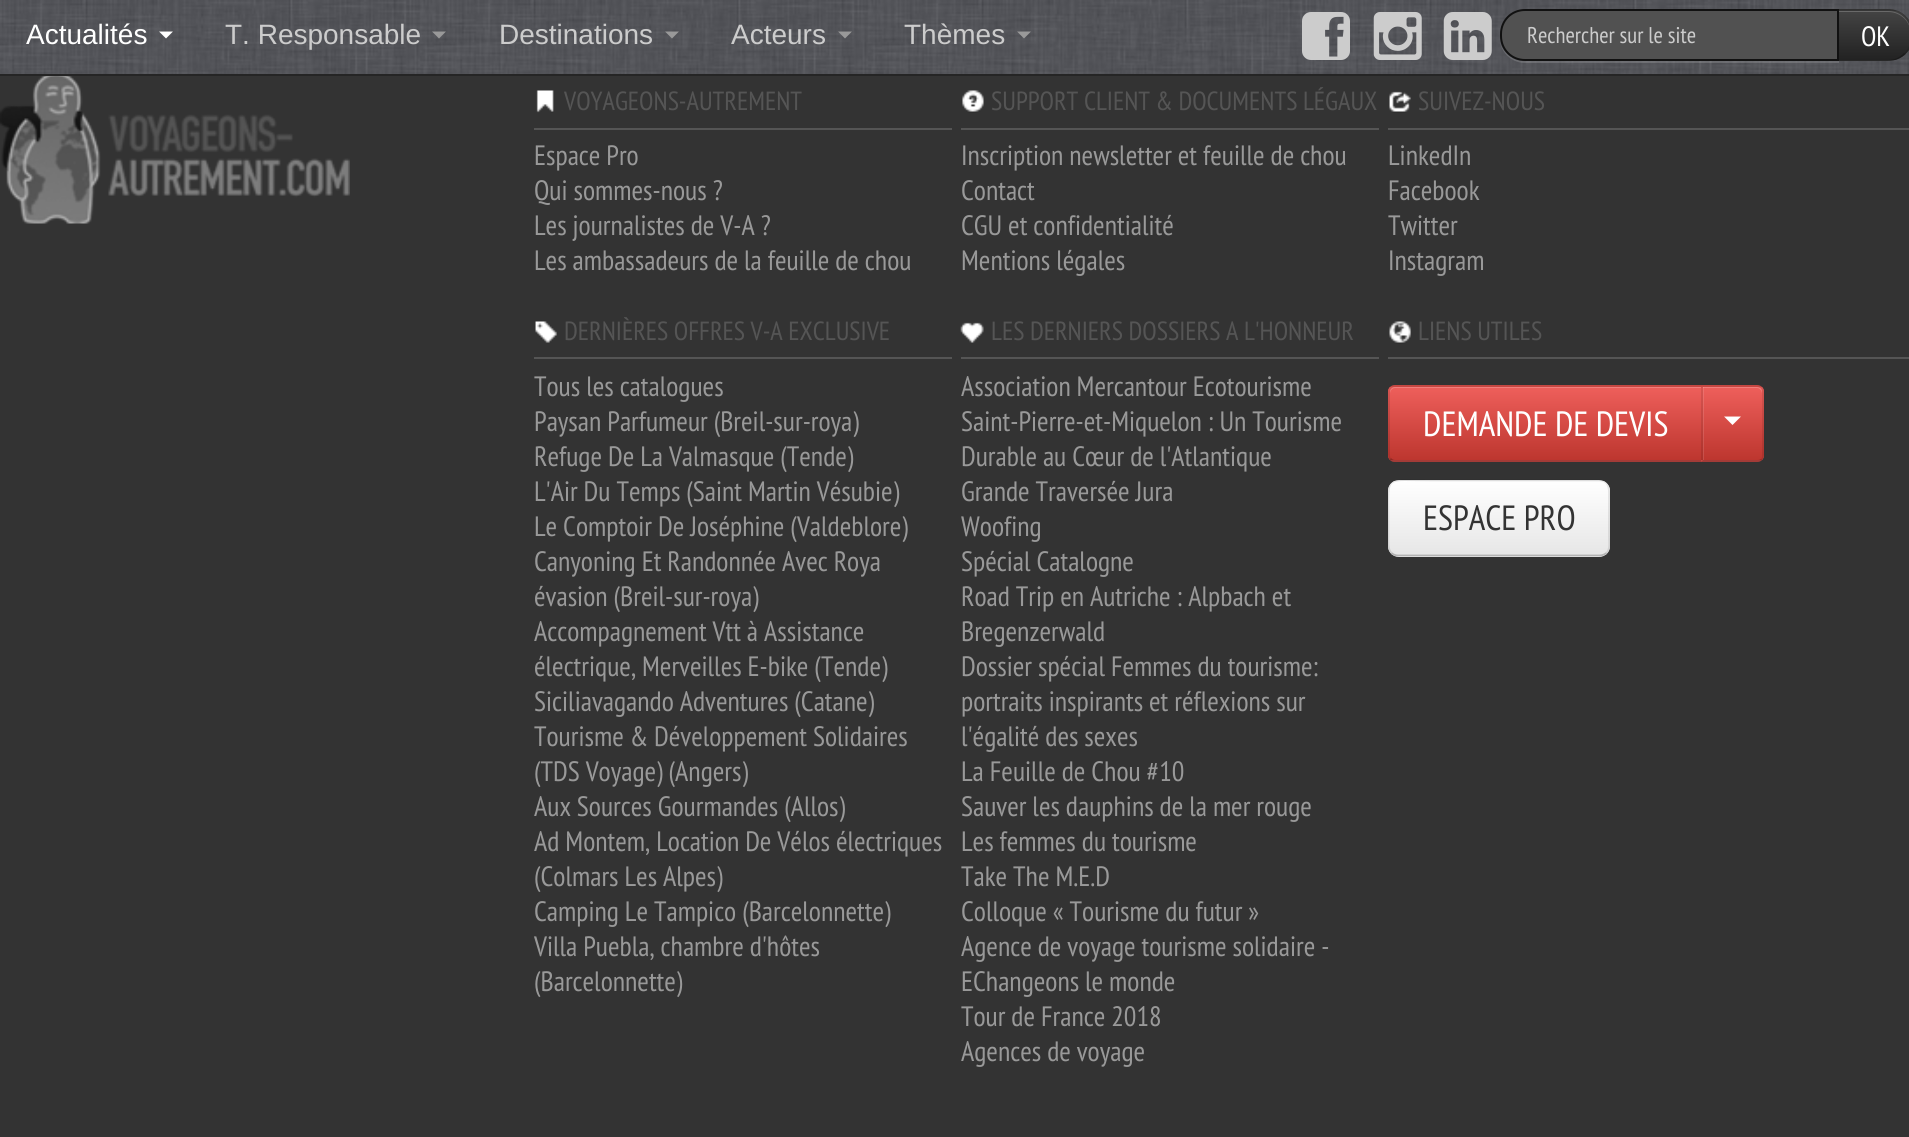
import math
import cairo

surface = cairo.ImageSurface(cairo.Format.RGB24, 1909, 1137)
ctx = cairo.Context(surface)
options = cairo.FontOptions()
options.set_hint_metrics(cairo.HintMetrics.OFF)
options.set_hint_style(cairo.HintStyle.NONE)
ctx.set_font_options(options)
ctx.set_miter_limit(4)


def ink(r, g, b):
    ctx.set_source_rgb(r / 255, g / 255, b / 255)


def write(x, y, s, family, size, color, bold=False, italic=False):
    ctx.select_font_face(family, cairo.FontSlant.ITALIC if italic else cairo.FontSlant.NORMAL, cairo.FontWeight.BOLD if bold else cairo.FontWeight.NORMAL)
    ctx.set_font_size(size)
    ink(*color)
    ctx.move_to(x, y)
    ctx.show_text(s)


def block(x, y, w, h, *color):
    ink(*color)
    ctx.rectangle(x, y, w, h)
    ctx.fill()


def round_path(x, y, w, h, r):
    ctx.new_sub_path()
    for i, (u, v) in enumerate([(x + w - r, y + h - r), (x + r, y + h - r), (x + r, y + r), (x + w - r, y + r)]):
        ctx.arc(u, v, r, i * math.pi / 2, (i + 1) * math.pi / 2)
    ctx.close_path()


def paste(path, x, y, w, h):
    ctx.save()
    ctx.set_source_surface(cairo.ImageSurface.create_from_png(path), x, y)
    ctx.rectangle(x, y, w, h)
    ctx.fill()
    ctx.restore()


s1 = dict(family="Liberation Sans", size=28, color=(255, 255, 255))
s2 = dict(family="Liberation Sans", size=28, color=(204, 204, 204))
s3 = dict(family="PT Sans Narrow", size=22.75, color=(204, 204, 204))
s4 = dict(family="PT Sans Narrow", size=28, color=(255, 255, 255))
s5 = dict(family="PT Sans Narrow", size=26.25, color=(85, 85, 85))
s6 = dict(family="PT Sans Narrow", size=28, color=(153, 153, 153))
s7 = dict(family="PT Sans Narrow", size=35, color=(255, 255, 255))
s8 = dict(family="PT Sans Narrow", size=35, color=(51, 51, 51))

ink(51, 51, 51)
ctx.paint()
paste("pic1.png", 0, 0, 1909, 74)
block(0, 74, 1909, 2, 37, 37, 37)
write(26, 44, "Actualités", **s1)
ctx.new_path()
ctx.move_to(159, 31.5)
ctx.line_to(173, 31.5)
ctx.line_to(166, 38.5)
ctx.close_path()
ctx.fill()
write(225, 44, "T. Responsable", **s2)
ink(153, 153, 153)
ctx.new_path()
ctx.move_to(432, 31.5)
ctx.line_to(446, 31.5)
ctx.line_to(439, 38.5)
ctx.close_path()
ctx.fill()
write(499, 44, "Destinations", **s2)
ink(153, 153, 153)
ctx.new_path()
ctx.move_to(665, 31.5)
ctx.line_to(679, 31.5)
ctx.line_to(672, 38.5)
ctx.close_path()
ctx.fill()
write(731, 44, "Acteurs", **s2)
ink(153, 153, 153)
ctx.new_path()
ctx.move_to(838, 31.5)
ctx.line_to(852, 31.5)
ctx.line_to(845, 38.5)
ctx.close_path()
ctx.fill()
write(904, 44, "Thèmes", **s2)
ink(153, 153, 153)
ctx.new_path()
ctx.move_to(1017, 31.5)
ctx.line_to(1031, 31.5)
ctx.line_to(1024, 38.5)
ctx.close_path()
ctx.fill()
paste("pic2.png", 1302, 12, 48, 48)
paste("pic3.png", 1373, 12, 49, 48)
paste("pic4.png", 1443, 12, 49, 48)
ink(54, 54, 54)
ctx.new_path()
ctx.move_to(1838, 9)
ctx.line_to(1888, 9)
ctx.curve_to(1902, 9, 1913, 20, 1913, 34)
ctx.line_to(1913, 36)
ctx.curve_to(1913, 50, 1902, 61, 1888, 61)
ctx.line_to(1838, 61)
ctx.close_path()
ctx.fill()
ctx.save()
ctx.new_path()
ctx.move_to(1838, 9)
ctx.line_to(1888, 9)
ctx.curve_to(1902, 9, 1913, 20, 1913, 34)
ctx.line_to(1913, 36)
ctx.curve_to(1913, 50, 1902, 61, 1888, 61)
ctx.line_to(1838, 61)
ctx.close_path()
ctx.clip()
gradient = cairo.LinearGradient(1875, 10, 1875, 60)
gradient.add_color_stop_rgba(0, 0.267, 0.267, 0.267, 1)
gradient.add_color_stop_rgba(1, 0.133, 0.133, 0.133, 1)
ctx.set_source(gradient)
ctx.rectangle(1839, 11, 70, 49)
ctx.fill()
ctx.restore()
ctx.set_source_rgba(1, 1, 1, 0.2)
ctx.new_path()
ctx.move_to(1839, 12)
ctx.line_to(1888, 12)
ctx.curve_to(1901, 12, 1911, 22, 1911, 35)
ctx.line_to(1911, 34)
ctx.curve_to(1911, 21, 1901, 11, 1888, 11)
ctx.line_to(1839, 11)
ctx.close_path()
ctx.fill()
ctx.set_source_rgba(0, 0, 0, 0.1)
ctx.new_path()
ctx.move_to(1838, 9)
ctx.line_to(1839, 10)
ctx.line_to(1888, 10)
ctx.curve_to(1895, 10, 1900, 13, 1904, 17)
ctx.line_to(1906, 16)
ctx.curve_to(1901, 12, 1895, 9, 1888, 9)
ctx.close_path()
ctx.fill()
ctx.new_path()
ctx.move_to(1905.5, 16)
ctx.curve_to(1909.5, 19.5, 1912, 24.5, 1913, 29.5)
ctx.line_to(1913, 40.5)
ctx.curve_to(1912, 45.5, 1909.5, 50.5, 1905.5, 54)
ctx.line_to(1904.5, 53)
ctx.curve_to(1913.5, 43.5, 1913.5, 26.5, 1904.5, 17)
ctx.close_path()
ctx.fill()
ctx.set_source_rgba(0, 0, 0, 0.25)
ctx.new_path()
ctx.move_to(1906, 54)
ctx.curve_to(1901, 58, 1895, 61, 1888, 61)
ctx.line_to(1838, 61)
ctx.line_to(1839, 60)
ctx.line_to(1888, 60)
ctx.curve_to(1895, 60, 1900, 57, 1904, 53)
ctx.close_path()
ctx.fill()
ctx.set_source_rgba(1, 1, 1, 0.15)
ctx.new_path()
ctx.move_to(1500, 42)
ctx.curve_to(1502, 54, 1513, 63, 1525, 63)
ctx.line_to(1839, 63)
ctx.line_to(1839, 61)
ctx.line_to(1524, 61)
ctx.curve_to(1513, 61, 1503, 53, 1500, 42)
ctx.close_path()
ctx.fill()
ink(81, 81, 81)
ctx.new_path()
ctx.move_to(1525, 10)
ctx.line_to(1838, 10)
ctx.line_to(1838, 60)
ctx.line_to(1525, 60)
ctx.curve_to(1511.5, 60, 1501, 49.5, 1501, 36)
ctx.line_to(1501, 34)
ctx.curve_to(1501, 20.5, 1511.5, 10, 1525, 10)
ctx.close_path()
ctx.fill_preserve()
ink(17, 17, 17)
ctx.stroke()
write(1527, 43, "Rechercher sur le site", **s3)
write(1861, 46, "OK", **s4)
paste("pic5.png", 0, 76, 350, 148)
block(534, 128, 418, 2, 85, 85, 85)
paste("pic6.png", 536, 90, 18, 23)
write(564, 110, "VOYAGEONS-AUTREMENT", **s5)
write(534, 165, "Espace Pro", **s6)
write(534, 200, "Qui sommes-nous ?", **s6)
write(534, 235, "Les journalistes de V-A ?", **s6)
write(534, 270, "Les ambassadeurs de la feuille de chou", **s6)
block(961, 128, 418, 2, 85, 85, 85)
paste("pic7.png", 962, 90, 22, 23)
write(991, 110, "SUPPORT CLIENT & DOCUMENTS LÉGAUX", **s5)
write(961, 165, "Inscription newsletter et feuille de chou", **s6)
write(961, 200, "Contact", **s6)
write(961, 235, "CGU et confidentialité", **s6)
write(961, 270, "Mentions légales", **s6)
block(1388, 128, 521, 2, 85, 85, 85)
paste("pic8.png", 1389, 91, 22, 22)
write(1418, 110, "SUIVEZ-NOUS", **s5)
write(1388, 165, "LinkedIn", **s6)
write(1388, 200, "Facebook", **s6)
write(1388, 235, "Twitter", **s6)
write(1388, 270, "Instagram", **s6)
block(534, 357, 418, 2, 85, 85, 85)
paste("pic9.png", 535, 321, 22, 22)
write(564, 340, "DERNIÈRES OFFRES V-A EXCLUSIVE", **s5)
write(534, 396, "Tous les catalogues", **s6)
write(534, 431, "Paysan Parfumeur (Breil-sur-roya)", **s6)
write(534, 466, "Refuge De La Valmasque (Tende)", **s6)
write(534, 501, "L'Air Du Temps (Saint Martin Vésubie)", **s6)
write(534, 536, "Le Comptoir De Joséphine (Valdeblore)", **s6)
write(534, 571, "Canyoning Et Randonnée Avec Roya", **s6)
write(534, 606, "évasion (Breil-sur-roya)", **s6)
write(534, 641, "Accompagnement Vtt à Assistance", **s6)
write(534, 676, "électrique, Merveilles E-bike (Tende)", **s6)
write(534, 711, "Siciliavagando Adventures (Catane)", **s6)
write(534, 746, "Tourisme & Développement Solidaires", **s6)
write(534, 781, "(TDS Voyage) (Angers)", **s6)
write(534, 816, "Aux Sources Gourmandes (Allos)", **s6)
write(534, 851, "Ad Montem, Location De Vélos électriques", **s6)
write(534, 886, "(Colmars Les Alpes)", **s6)
write(534, 921, "Camping Le Tampico (Barcelonnette)", **s6)
write(534, 956, "Villa Puebla, chambre d'hôtes", **s6)
write(534, 991, "(Barcelonnette)", **s6)
block(961, 357, 418, 2, 85, 85, 85)
paste("pic10.png", 960, 322, 24, 21)
write(991, 340, "LES DERNIERS DOSSIERS A L'HONNEUR", **s5)
write(961, 396, "Association Mercantour Ecotourisme", **s6)
write(961, 431, "Saint-Pierre-et-Miquelon : Un Tourisme", **s6)
write(961, 466, "Durable au Cœur de l'Atlantique", **s6)
write(961, 501, "Grande Traversée Jura", **s6)
write(961, 536, "Woofing", **s6)
write(961, 571, "Spécial Catalogne", **s6)
write(961, 606, "Road Trip en Autriche : Alpbach et", **s6)
write(961, 641, "Bregenzerwald", **s6)
write(961, 676, "Dossier spécial Femmes du tourisme:", **s6)
write(961, 711, "portraits inspirants et réflexions sur", **s6)
write(961, 746, "l'égalité des sexes", **s6)
write(961, 781, "La Feuille de Chou #10", **s6)
write(961, 816, "Sauver les dauphins de la mer rouge", **s6)
write(961, 851, "Les femmes du tourisme", **s6)
write(961, 886, "Take The M.E.D", **s6)
write(961, 921, "Colloque « Tourisme du futur »", **s6)
write(961, 956, "Agence de voyage tourisme solidaire -", **s6)
write(961, 991, "EChangeons le monde", **s6)
write(961, 1026, "Tour de France 2018", **s6)
write(961, 1061, "Agences de voyage", **s6)
block(1388, 357, 521, 2, 85, 85, 85)
paste("pic11.png", 1389, 321, 22, 23)
write(1418, 340, "LIENS UTILES", **s5)
ink(218, 79, 73)
ctx.new_path()
ctx.move_to(1395, 385)
ctx.line_to(1703, 385)
ctx.line_to(1703, 462)
ctx.line_to(1395, 462)
ctx.curve_to(1391, 462, 1388, 459, 1388, 455)
ctx.line_to(1388, 392)
ctx.curve_to(1388, 388, 1391, 385, 1395, 385)
ctx.close_path()
ctx.fill()
ctx.save()
ctx.new_path()
ctx.move_to(1395, 385)
ctx.line_to(1703, 385)
ctx.line_to(1703, 462)
ctx.line_to(1395, 462)
ctx.curve_to(1391, 462, 1388, 459, 1388, 455)
ctx.line_to(1388, 392)
ctx.curve_to(1388, 388, 1391, 385, 1395, 385)
ctx.close_path()
ctx.clip()
gradient = cairo.LinearGradient(1545, 387, 1545, 460)
gradient.add_color_stop_rgba(0, 0.933, 0.373, 0.357, 1)
gradient.add_color_stop_rgba(1, 0.741, 0.212, 0.184, 1)
ctx.set_source(gradient)
ctx.rectangle(1388, 387, 313, 73)
ctx.fill()
ctx.restore()
ink(241, 127, 124)
ctx.new_path()
ctx.move_to(1395, 388)
ctx.line_to(1701, 388)
ctx.line_to(1701, 387)
ctx.line_to(1394, 387)
ctx.curve_to(1390, 388, 1390, 391, 1390, 394)
ctx.curve_to(1390, 391, 1392, 388, 1395, 388)
ctx.close_path()
ctx.fill()
ctx.set_source_rgba(0, 0, 0, 0.1)
ctx.new_path()
ctx.move_to(1395, 385)
ctx.curve_to(1393, 385, 1391, 386, 1390, 387)
ctx.line_to(1391, 389)
ctx.curve_to(1392, 388, 1393, 387, 1395, 387)
ctx.line_to(1701, 387)
ctx.line_to(1703, 385)
ctx.close_path()
ctx.fill()
ctx.set_source_rgba(0, 0, 0, 0.25)
ctx.new_path()
ctx.move_to(1703, 462)
ctx.line_to(1701, 460)
ctx.line_to(1395, 460)
ctx.curve_to(1393, 460, 1392, 459, 1391, 458)
ctx.line_to(1390, 460)
ctx.curve_to(1391, 461, 1393, 462, 1395, 462)
ctx.close_path()
ctx.fill()
ctx.set_source_rgba(0, 0, 0, 0.1)
ctx.new_path()
ctx.move_to(1390, 387)
ctx.curve_to(1389, 388, 1388, 390, 1388, 392)
ctx.line_to(1388, 455)
ctx.curve_to(1388, 457, 1389, 459, 1390, 460)
ctx.line_to(1391, 458)
ctx.curve_to(1390, 458, 1390, 456, 1390, 455)
ctx.line_to(1390, 392)
ctx.curve_to(1390, 391, 1390, 389, 1391, 389)
ctx.close_path()
ctx.fill()
write(1423, 436, "DEMANDE DE DEVIS", **s7)
ink(218, 79, 73)
ctx.new_path()
ctx.move_to(1701, 385)
ctx.line_to(1757, 385)
ctx.curve_to(1761, 385, 1764, 388, 1764, 392)
ctx.line_to(1764, 455)
ctx.curve_to(1764, 459, 1761, 462, 1757, 462)
ctx.line_to(1701, 462)
ctx.close_path()
ctx.fill()
ctx.save()
ctx.new_path()
ctx.move_to(1701, 385)
ctx.line_to(1757, 385)
ctx.curve_to(1761, 385, 1764, 388, 1764, 392)
ctx.line_to(1764, 455)
ctx.curve_to(1764, 459, 1761, 462, 1757, 462)
ctx.line_to(1701, 462)
ctx.close_path()
ctx.clip()
gradient = cairo.LinearGradient(1733, 387, 1733, 460)
gradient.add_color_stop_rgba(0, 0.933, 0.373, 0.357, 1)
gradient.add_color_stop_rgba(1, 0.741, 0.212, 0.184, 1)
ctx.set_source(gradient)
ctx.rectangle(1701, 387, 63, 73)
ctx.fill()
ctx.restore()
ink(241, 127, 124)
ctx.new_path()
ctx.move_to(1703, 388)
ctx.line_to(1757, 388)
ctx.curve_to(1760, 388, 1762, 391, 1762, 394)
ctx.line_to(1762, 392)
ctx.curve_to(1762, 389, 1760, 387, 1757, 387)
ctx.line_to(1703, 387)
ctx.close_path()
ctx.fill()
ctx.set_source_rgba(1, 1, 1, 0.12)
ctx.rectangle(1703, 387, 1, 73)
ctx.fill()
ctx.set_source_rgba(0, 0, 0, 0.1)
ctx.new_path()
ctx.move_to(1701, 385)
ctx.line_to(1703, 387)
ctx.line_to(1757, 387)
ctx.curve_to(1758, 387, 1760, 388, 1761, 388)
ctx.line_to(1762, 387)
ctx.curve_to(1761, 386, 1759, 385, 1757, 385)
ctx.close_path()
ctx.fill()
ctx.new_path()
ctx.move_to(1764, 455)
ctx.line_to(1764, 392)
ctx.curve_to(1764, 390, 1763, 388, 1762, 387)
ctx.line_to(1761, 388)
ctx.curve_to(1762, 389, 1762, 390, 1762, 392)
ctx.line_to(1762, 455)
ctx.curve_to(1762, 456, 1762, 458, 1761, 459)
ctx.line_to(1762, 460)
ctx.curve_to(1763, 459, 1764, 457, 1764, 455)
ctx.close_path()
ctx.fill()
ctx.set_source_rgba(0, 0, 0, 0.25)
ctx.new_path()
ctx.move_to(1757, 462)
ctx.curve_to(1759, 462, 1761, 461, 1762, 460)
ctx.line_to(1761, 459)
ctx.curve_to(1760, 460, 1758, 460, 1757, 460)
ctx.line_to(1703, 460)
ctx.line_to(1701, 462)
ctx.close_path()
ctx.fill()
ctx.set_source_rgba(0, 0, 0, 0.1)
ctx.new_path()
ctx.move_to(1703, 387)
ctx.line_to(1701, 385)
ctx.line_to(1701, 462)
ctx.line_to(1703, 460)
ctx.close_path()
ctx.fill()
ink(255, 255, 255)
ctx.new_path()
ctx.move_to(1724, 416.5)
ctx.line_to(1741, 416.5)
ctx.line_to(1732.5, 425)
ctx.close_path()
ctx.fill()
ink(245, 245, 245)
round_path(1388, 480, 222, 77, 11)
ctx.fill()
ctx.save()
round_path(1388, 480, 222, 77, 11)
ctx.clip()
gradient = cairo.LinearGradient(1499, 481, 1499, 555)
gradient.add_color_stop_rgba(0, 1, 1, 1, 1)
gradient.add_color_stop_rgba(1, 0.902, 0.902, 0.902, 1)
ctx.set_source(gradient)
ctx.rectangle(1388, 481, 222, 74)
ctx.fill()
ctx.restore()
ctx.new_path()
ctx.move_to(1606.5, 553)
ctx.curve_to(1604.5, 554.5, 1602, 555.5, 1599.5, 555.5)
ctx.line_to(1398, 555.5)
ctx.curve_to(1395.5, 555.5, 1393, 554.5, 1391.5, 553)
ink(179, 179, 179)
ctx.set_line_width(1.8)
ctx.stroke()
ctx.new_path()
ctx.move_to(1391.5, 553)
ctx.curve_to(1387.5, 548.5, 1388.5, 542, 1388.5, 536.5)
ctx.line_to(1388.5, 518)
ctx.curve_to(1388.5, 473.5, 1383.5, 480.5, 1432, 480.5)
ctx.line_to(1599.5, 480.5)
ctx.curve_to(1610.5, 480.5, 1609, 492, 1609, 499.5)
ctx.line_to(1609, 536.5)
ctx.curve_to(1609, 542, 1610.5, 548.5, 1606.5, 553)
ctx.set_source_rgba(0, 0, 0, 0.1)
ctx.stroke()
write(1423, 530, "ESPACE PRO", **s8)
surface.write_to_png("screenshot.png")
